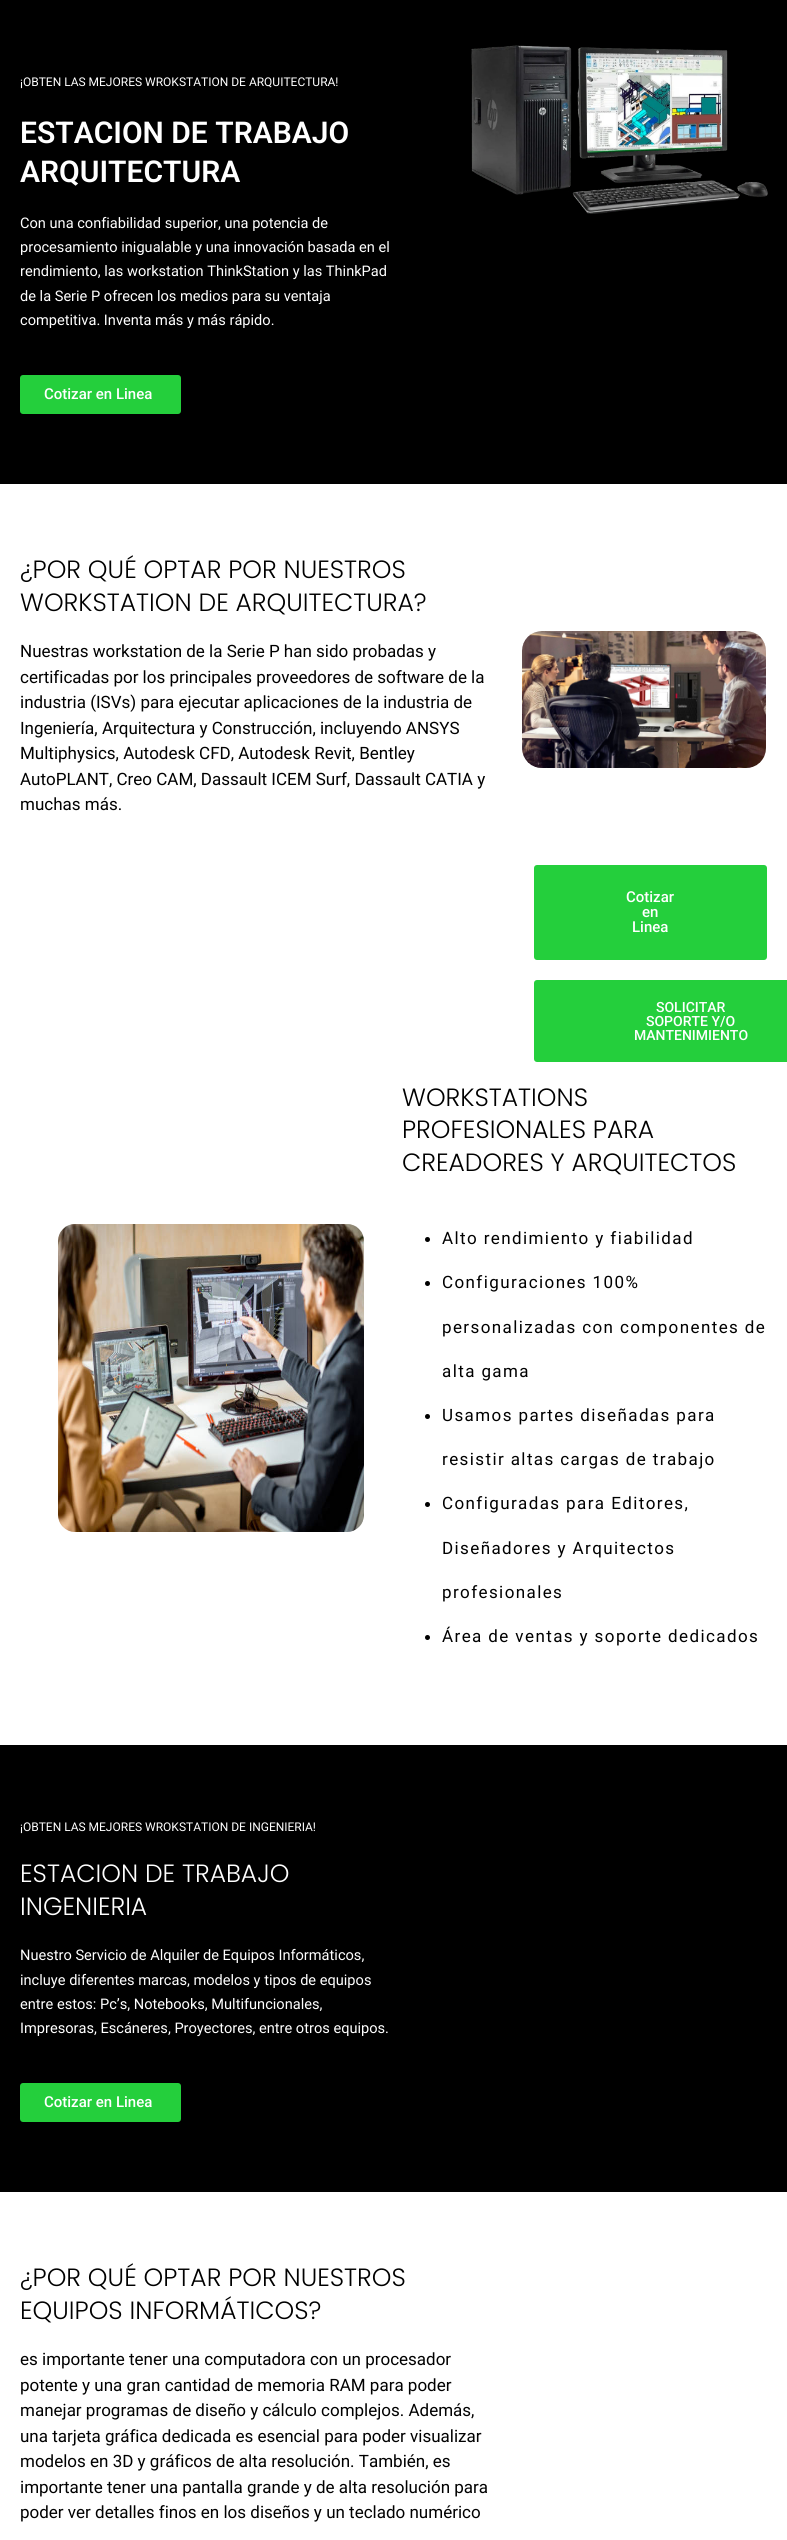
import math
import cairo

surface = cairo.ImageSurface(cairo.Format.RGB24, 787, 2540)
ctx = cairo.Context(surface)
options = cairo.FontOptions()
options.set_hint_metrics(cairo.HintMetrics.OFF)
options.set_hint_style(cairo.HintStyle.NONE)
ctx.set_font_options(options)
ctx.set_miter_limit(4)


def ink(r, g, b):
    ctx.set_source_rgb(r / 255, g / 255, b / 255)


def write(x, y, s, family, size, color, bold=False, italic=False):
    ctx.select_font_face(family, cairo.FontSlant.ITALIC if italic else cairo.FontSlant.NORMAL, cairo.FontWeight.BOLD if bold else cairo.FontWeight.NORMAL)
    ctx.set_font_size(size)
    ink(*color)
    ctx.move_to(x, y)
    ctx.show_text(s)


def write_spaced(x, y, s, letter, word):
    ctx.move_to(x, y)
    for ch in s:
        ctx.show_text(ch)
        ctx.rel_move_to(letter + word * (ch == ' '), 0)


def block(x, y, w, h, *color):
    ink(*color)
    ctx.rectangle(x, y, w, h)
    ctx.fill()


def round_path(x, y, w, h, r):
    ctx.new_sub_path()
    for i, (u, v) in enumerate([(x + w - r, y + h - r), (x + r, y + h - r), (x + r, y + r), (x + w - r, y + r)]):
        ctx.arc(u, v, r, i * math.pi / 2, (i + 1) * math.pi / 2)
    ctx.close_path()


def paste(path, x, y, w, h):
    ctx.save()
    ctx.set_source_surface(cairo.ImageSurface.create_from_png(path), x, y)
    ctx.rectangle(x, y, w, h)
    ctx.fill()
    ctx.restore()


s1 = dict(family="Roboto", size=12, color=(255, 255, 255))
s2 = dict(family="Roboto SemiBold", size=30, color=(255, 255, 255))
s3 = dict(family="Roboto", size=14.6, color=(255, 255, 255))
s4 = dict(family="Roboto Medium", size=15, color=(255, 255, 255))
s5 = dict(family="Poppins Light", size=25, color=(0, 0, 0))
s6 = dict(family="Roboto", size=17, color=(0, 0, 0))
s7 = dict(family="Roboto Medium", size=14, color=(255, 255, 255))
s8 = dict(family="Poppins Light", size=25, color=(255, 255, 255))

ink(255, 255, 255)
ctx.paint()
block(0, 0, 787, 484, 0, 0, 0)
write(20, 86, "¡OBTEN LAS MEJORES WROKSTATION DE ARQUITECTURA!", **s1)
write(20, 143, "ESTACION DE TRABAJO", **s2)
write(20, 182, "ARQUITECTURA", **s2)
write(20, 228, "Con una confiabilidad superior, una potencia de", **s3)
write(20, 252, "procesamiento inigualable y una innovación basada en el", **s3)
write(20, 276, "rendimiento, las workstation ThinkStation y las ThinkPad", **s3)
write(20, 301, "de la Serie P ofrecen los medios para su ventaja", **s3)
write(20, 325, "competitiva. Inventa más y más rápido.", **s3)
ink(36, 207, 60)
round_path(20, 375, 161, 39, 3)
ctx.fill()
write(44, 399, "Cotizar en Linea", **s4)
paste("pic1.png", 471, 45, 297, 169)
write(20, 578, "¿POR QUÉ OPTAR POR NUESTROS", **s5)
write(20, 611, "WORKSTATION DE ARQUITECTURA?", **s5)
write(20, 657, "Nuestras workstation de la Serie P han sido probadas y", **s6)
write(20, 683, "certificadas por los principales proveedores de software de la", **s6)
write(20, 708, "industria (ISVs) para ejecutar aplicaciones de la industria de", **s6)
write(20, 734, "Ingeniería, Arquitectura y Construcción, incluyendo ANSYS", **s6)
write(20, 759, "Multiphysics, Autodesk CFD, Autodesk Revit, Bentley", **s6)
write(20, 785, "AutoPLANT, Creo CAM, Dassault ICEM Surf, Dassault CATIA y", **s6)
write(20, 810, "muchas más.", **s6)
paste("pic2.png", 522, 631, 244, 137)
ink(36, 207, 60)
round_path(534, 865, 233, 95, 3)
ctx.fill()
write(626, 902, "Cotizar", **s4)
write(642, 917, "en", **s4)
write(632, 932, "Linea", **s4)
ink(36, 207, 60)
round_path(534, 980, 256, 82, 3)
ctx.fill()
write(656, 1012, "SOLICITAR", **s7)
write(646, 1026, "SOPORTE Y/O", **s7)
write(634, 1040, "MANTENIMIENTO", **s7)
paste("pic3.png", 58, 1224, 306, 308)
write(402, 1106, "WORKSTATIONS", **s5)
write(402, 1138, "PROFESIONALES PARA", **s5)
write(402, 1171, "CREADORES Y ARQUITECTOS", **s5)
ctx.new_path()
ctx.arc(427.5, 1239.5, 2.5, 0, 2 * math.pi)
ctx.fill()
ctx.select_font_face("Roboto")
ctx.set_font_size(17)
write_spaced(442, 1244, "Alto rendimiento y fiabilidad", 1.4, 0)
ctx.new_path()
ctx.arc(427.5, 1283.5, 2.5, 0, 2 * math.pi)
ctx.fill()
write_spaced(442, 1288, "Configuraciones 100%", 1.4, 0)
write_spaced(442, 1333, "personalizadas con componentes de", 1.4, 0)
write_spaced(442, 1377, "alta gama", 1.4, 0)
ctx.new_path()
ctx.arc(427.5, 1416.5, 2.5, 0, 2 * math.pi)
ctx.fill()
write_spaced(442, 1421, "Usamos partes diseñadas para", 1.4, 0)
write_spaced(442, 1465, "resistir altas cargas de trabajo", 1.4, 0)
ctx.new_path()
ctx.arc(427.5, 1504.5, 2.5, 0, 2 * math.pi)
ctx.fill()
write_spaced(442, 1509, "Configuradas para Editores,", 1.4, 0)
write_spaced(442, 1554, "Diseñadores y Arquitectos", 1.4, 0)
write_spaced(442, 1598, "profesionales", 1.4, 0)
ctx.new_path()
ctx.arc(427.5, 1637.5, 2.5, 0, 2 * math.pi)
ctx.fill()
write_spaced(442, 1642, "Área de ventas y soporte dedicados", 1.4, 0)
block(0, 1745, 787, 447, 0, 0, 0)
write(20, 1831, "¡OBTEN LAS MEJORES WROKSTATION DE INGENIERIA!", **s1)
write(20, 1882, "ESTACION DE TRABAJO", **s8)
write(20, 1915, "INGENIERIA", **s8)
write(20, 1960, "Nuestro Servicio de Alquiler de Equipos Informáticos,", **s3)
write(20, 1985, "incluye diferentes marcas, modelos y tipos de equipos", **s3)
write(20, 2009, "entre estos: Pc’s, Notebooks, Multifuncionales,", **s3)
write(20, 2033, "Impresoras, Escáneres, Proyectores, entre otros equipos.", **s3)
ink(36, 207, 60)
round_path(20, 2083, 161, 39, 3)
ctx.fill()
write(44, 2107, "Cotizar en Linea", **s4)
write(20, 2286, "¿POR QUÉ OPTAR POR NUESTROS", **s5)
write(20, 2319, "EQUIPOS INFORMÁTICOS?", **s5)
write(20, 2365, "es importante tener una computadora con un procesador", **s6)
write(20, 2391, "potente y una gran cantidad de memoria RAM para poder", **s6)
write(20, 2416, "manejar programas de diseño y cálculo complejos. Además,", **s6)
write(20, 2442, "una tarjeta gráfica dedicada es esencial para poder visualizar", **s6)
write(20, 2467, "modelos en 3D y gráficos de alta resolución. También, es", **s6)
write(20, 2493, "importante tener una pantalla grande y de alta resolución para", **s6)
write(20, 2518, "poder ver detalles finos en los diseños y un teclado numérico", **s6)
surface.write_to_png("screenshot.png")
